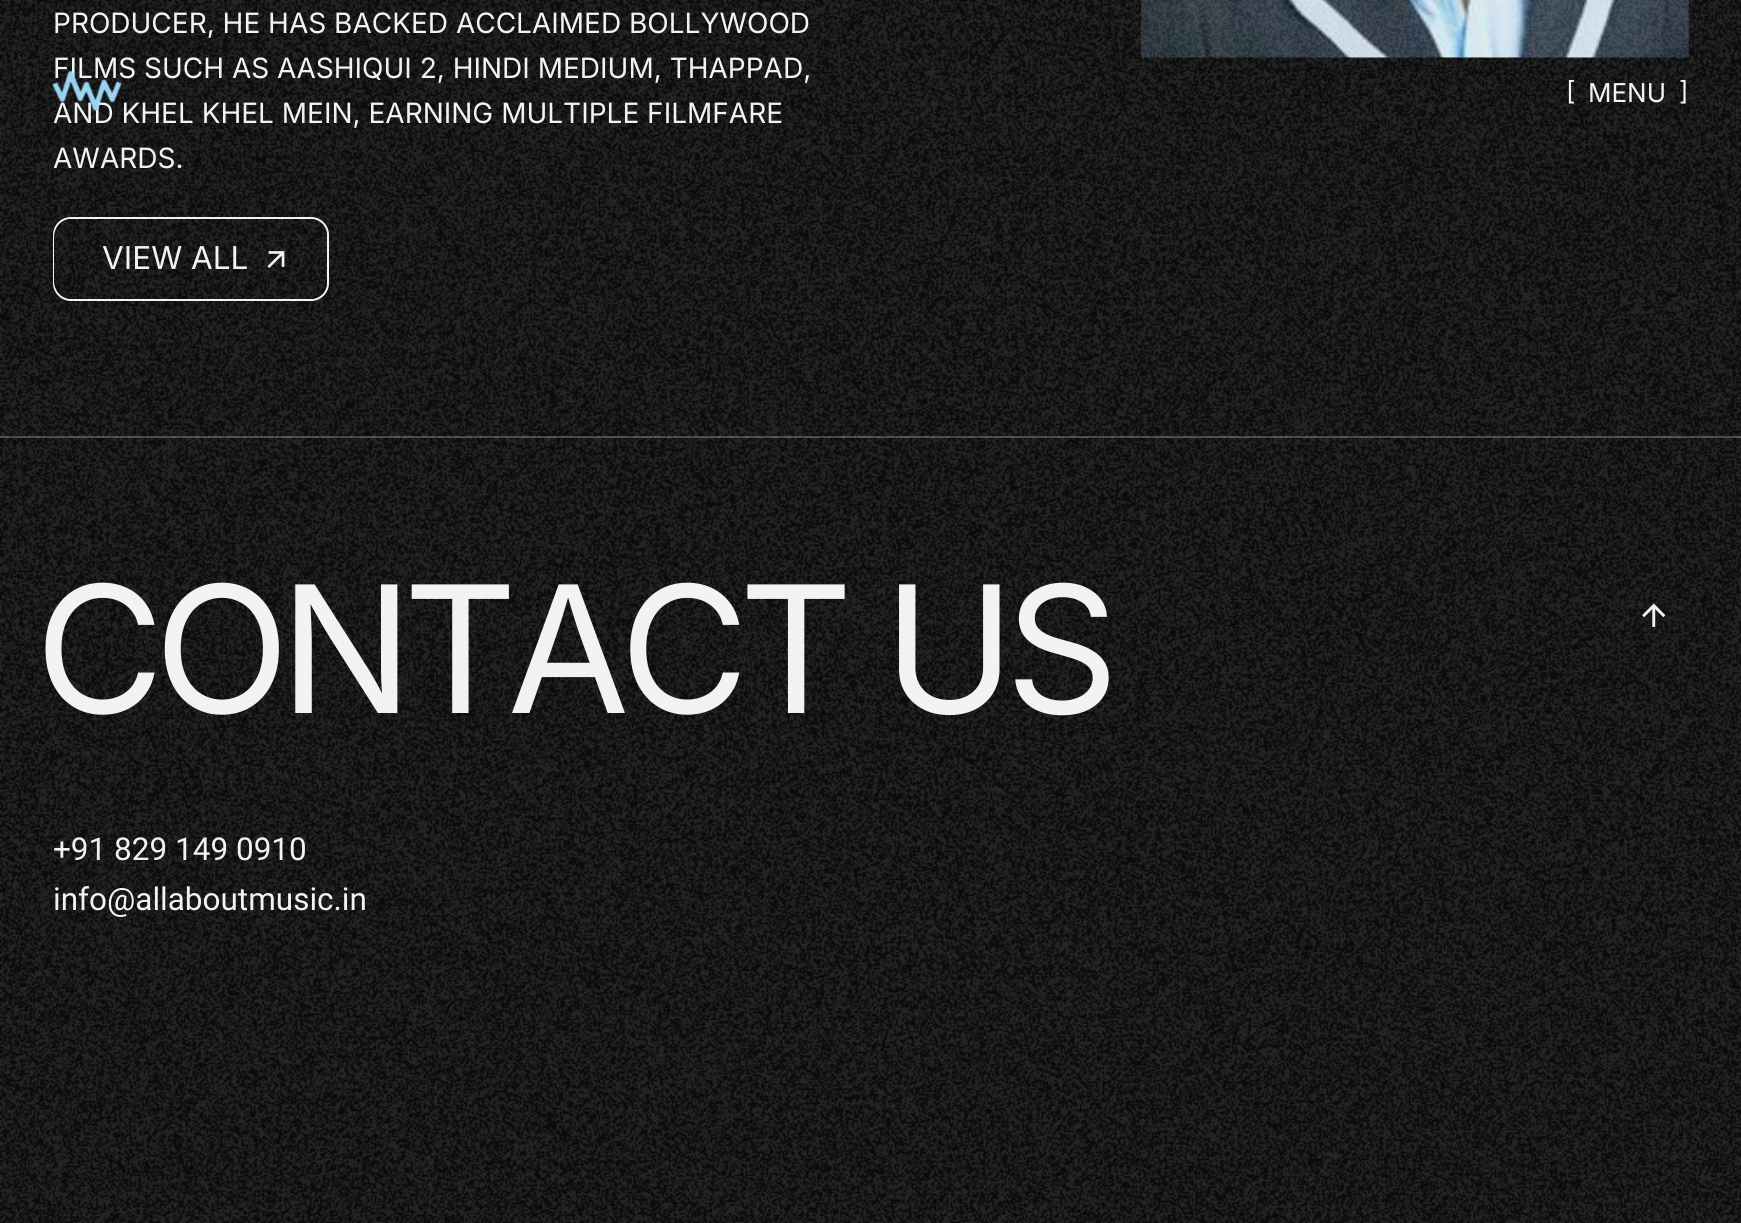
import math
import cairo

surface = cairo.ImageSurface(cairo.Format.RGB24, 1741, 1223)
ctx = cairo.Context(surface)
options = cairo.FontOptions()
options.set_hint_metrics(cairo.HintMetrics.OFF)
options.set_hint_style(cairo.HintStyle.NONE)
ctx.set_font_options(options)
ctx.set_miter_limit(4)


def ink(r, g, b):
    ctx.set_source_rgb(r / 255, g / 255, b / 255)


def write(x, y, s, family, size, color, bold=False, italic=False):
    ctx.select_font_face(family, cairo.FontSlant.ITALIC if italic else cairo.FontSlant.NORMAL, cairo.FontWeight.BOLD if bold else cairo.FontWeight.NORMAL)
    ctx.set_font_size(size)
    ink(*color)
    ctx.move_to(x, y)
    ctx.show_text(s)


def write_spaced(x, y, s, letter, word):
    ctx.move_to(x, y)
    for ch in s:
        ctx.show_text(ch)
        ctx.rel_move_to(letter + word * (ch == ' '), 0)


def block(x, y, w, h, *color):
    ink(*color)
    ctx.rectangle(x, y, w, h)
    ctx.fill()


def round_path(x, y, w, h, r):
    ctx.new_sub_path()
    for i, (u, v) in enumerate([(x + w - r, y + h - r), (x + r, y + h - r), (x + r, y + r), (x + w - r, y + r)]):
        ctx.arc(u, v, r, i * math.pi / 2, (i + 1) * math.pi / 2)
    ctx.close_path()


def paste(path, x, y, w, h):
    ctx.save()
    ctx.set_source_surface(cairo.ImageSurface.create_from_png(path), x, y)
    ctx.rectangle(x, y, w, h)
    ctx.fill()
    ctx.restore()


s1 = dict(family="Inter", size=28, color=(242, 242, 242))
s2 = dict(family="Inter", size=31.5, color=(242, 242, 242))
s3 = dict(family="Inter", size=26, color=(242, 242, 242))
s4 = dict(family="Roboto", size=31.5, color=(242, 242, 242))

ink(12, 12, 12)
ctx.paint()
write(53, 33, "PRODUCER, HE HAS BACKED ACCLAIMED BOLLYWOOD", **s1)
write(53, 78, "FILMS SUCH AS AASHIQUI 2, HINDI MEDIUM, THAPPAD,", **s1)
write(53, 123, "AND KHEL KHEL MEIN, EARNING MULTIPLE FILMFARE", **s1)
write(53, 168, "AWARDS.", **s1)
round_path(54, 218, 274, 82, 17)
ctx.stroke()
ink(12, 12, 12)
round_path(54, 219, 273, 80, 18)
ctx.fill()
write(102, 269, "VIEW ALL", **s2)
paste("pic2.png", 267, 251, 18, 18)
paste("pic3.png", 1141, 0, 548, 58)
paste("pic4.png", 52, 70, 70, 41)
write(1566, 100, "[", **s3)
write(1588, 102, "MENU", **s3)
write(1679, 100, "]", **s3)
block(0, 436, 1741, 2, 70, 70, 70)
ctx.set_font_size(176.75)
ink(242, 242, 242)
write_spaced(35, 713, "CONTACT US", -9.75, 0)
paste("pic5.png", 1642, 603, 24, 24)
write(53, 860, "+91 829 149 0910", **s4)
write(53, 910, "info@allaboutmusic.in", **s4)
paste("pic1.png", 0, 0, 1741, 1223)
surface.write_to_png("screenshot.png")
